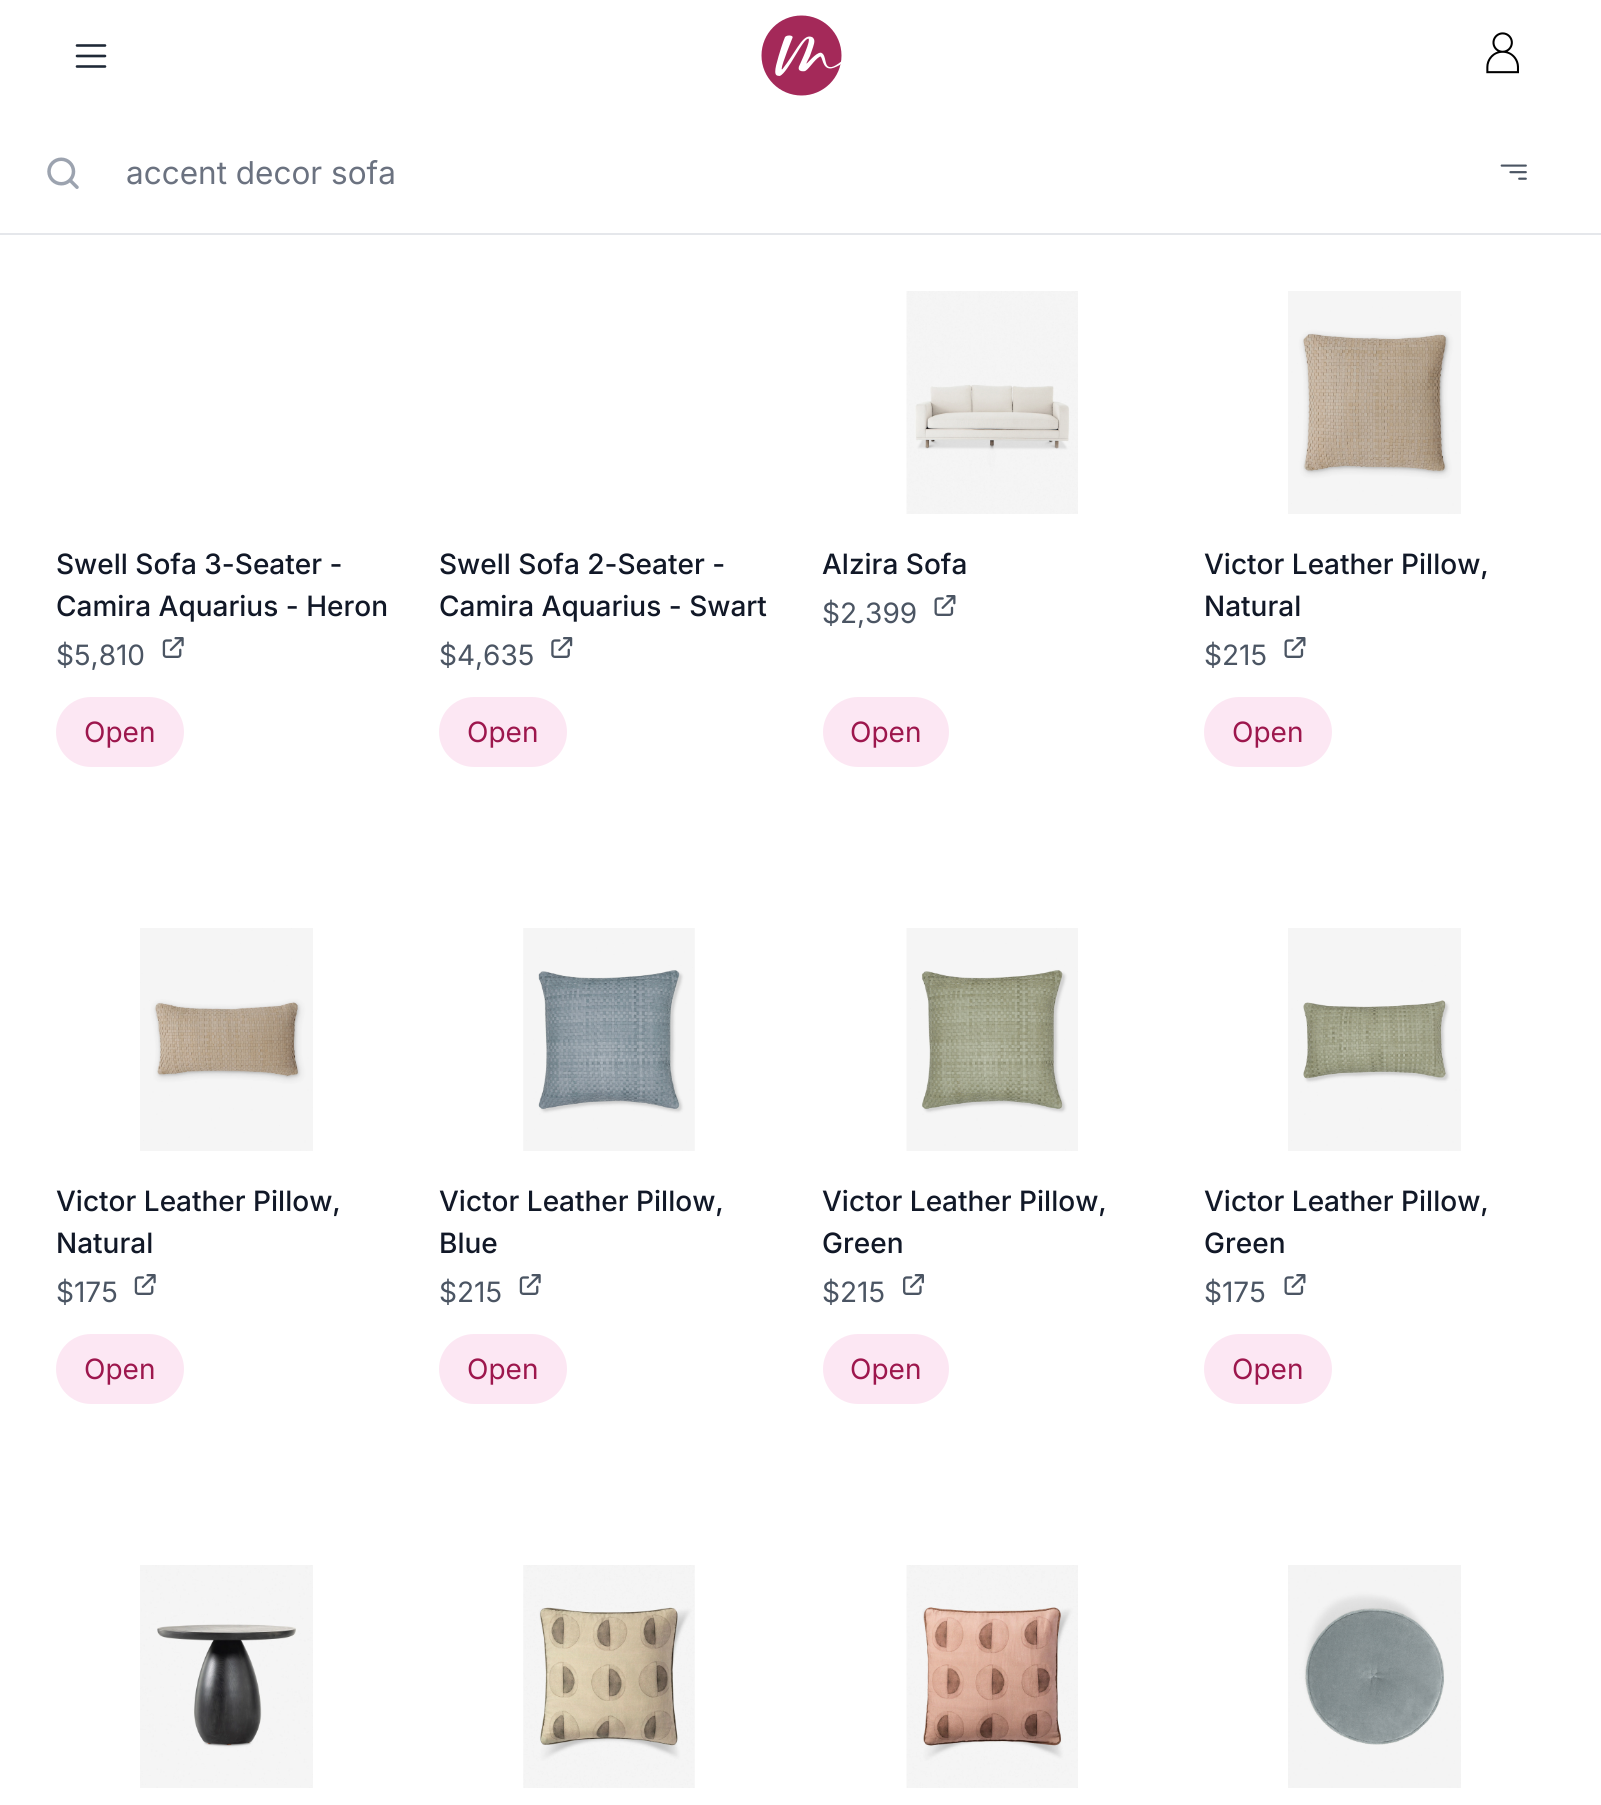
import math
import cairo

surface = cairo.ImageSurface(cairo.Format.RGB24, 1601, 1805)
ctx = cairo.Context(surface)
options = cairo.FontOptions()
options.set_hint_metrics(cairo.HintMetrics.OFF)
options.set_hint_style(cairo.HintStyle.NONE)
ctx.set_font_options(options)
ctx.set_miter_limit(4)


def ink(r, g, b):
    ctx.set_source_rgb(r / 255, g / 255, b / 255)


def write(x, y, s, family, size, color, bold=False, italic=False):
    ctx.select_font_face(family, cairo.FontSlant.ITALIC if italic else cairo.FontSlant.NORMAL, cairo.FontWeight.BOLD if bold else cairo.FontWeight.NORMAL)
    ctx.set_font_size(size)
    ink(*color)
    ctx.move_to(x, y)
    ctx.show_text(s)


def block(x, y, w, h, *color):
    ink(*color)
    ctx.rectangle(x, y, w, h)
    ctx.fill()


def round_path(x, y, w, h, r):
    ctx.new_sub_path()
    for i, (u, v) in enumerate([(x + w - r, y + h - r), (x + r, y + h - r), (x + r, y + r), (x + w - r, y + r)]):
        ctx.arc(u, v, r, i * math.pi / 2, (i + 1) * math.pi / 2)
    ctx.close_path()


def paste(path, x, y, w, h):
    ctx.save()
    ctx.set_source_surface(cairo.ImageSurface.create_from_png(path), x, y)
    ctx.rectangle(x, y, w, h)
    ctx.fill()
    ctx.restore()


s1 = dict(family="Inter", size=31.5, color=(107, 114, 128))
s2 = dict(family="Inter Medium", size=28, color=(17, 24, 39))
s3 = dict(family="Inter", size=28, color=(75, 85, 99))
s4 = dict(family="Inter", size=28, color=(157, 23, 77))

ink(255, 255, 255)
ctx.paint()
ctx.new_path()
ctx.move_to(77, 56)
ctx.line_to(105, 56)
ctx.move_to(77, 45.5)
ctx.line_to(105, 45.5)
ctx.move_to(77, 66.5)
ctx.line_to(105, 66.5)
ink(31, 41, 55)
ctx.set_line_width(2.6)
ctx.set_line_cap(cairo.LineCap.ROUND)
ctx.set_line_join(cairo.LineJoin.ROUND)
ctx.stroke()
paste("pic1.png", 761, 15, 81, 81)
paste("pic2.png", 1486, 32, 33, 42)
block(0, 233, 1601, 2, 229, 231, 235)
paste("pic3.png", 47, 157, 32, 32)
write(126, 184, "accent decor sofa", **s1)
paste("pic4.png", 1500, 164, 27, 16)
write(56, 574, "Swell Sofa 3-Seater -", **s2)
write(56, 616, "Camira Aquarius - Heron", **s2)
write(56, 665, "$5,810", **s3)
paste("pic5.png", 162, 637, 22, 21)
ink(252, 231, 243)
round_path(56, 697, 128, 70, 35)
ctx.fill()
write(84, 742, "Open", **s4)
write(439, 574, "Swell Sofa 2-Seater -", **s2)
write(439, 616, "Camira Aquarius - Swart", **s2)
write(439, 665, "$4,635", **s3)
paste("pic6.png", 551, 637, 22, 21)
ink(252, 231, 243)
round_path(439, 697, 128, 70, 35)
ctx.fill()
write(467, 742, "Open", **s4)
paste("pic7.png", 906, 291, 172, 223)
write(822, 574, "Alzira Sofa", **s2)
write(822, 623, "$2,399", **s3)
paste("pic8.png", 934, 595, 22, 21)
ink(252, 231, 243)
round_path(823, 697, 126, 70, 35)
ctx.fill()
write(850, 742, "Open", **s4)
paste("pic9.png", 1288, 291, 173, 223)
write(1204, 574, "Victor Leather Pillow,", **s2)
write(1204, 616, "Natural", **s2)
write(1204, 665, "$215", **s3)
paste("pic8.png", 1284, 637, 22, 21)
ink(252, 231, 243)
round_path(1204, 697, 128, 70, 35)
ctx.fill()
write(1232, 742, "Open", **s4)
paste("pic10.png", 140, 928, 173, 223)
write(56, 1211, "Victor Leather Pillow,", **s2)
write(56, 1253, "Natural", **s2)
write(56, 1302, "$175", **s3)
paste("pic5.png", 134, 1274, 22, 21)
ink(252, 231, 243)
round_path(56, 1334, 128, 70, 35)
ctx.fill()
write(84, 1379, "Open", **s4)
paste("pic11.png", 523, 928, 172, 223)
write(439, 1211, "Victor Leather Pillow,", **s2)
write(439, 1253, "Blue", **s2)
write(439, 1302, "$215", **s3)
paste("pic5.png", 519, 1274, 22, 21)
ink(252, 231, 243)
round_path(439, 1334, 128, 70, 35)
ctx.fill()
write(467, 1379, "Open", **s4)
paste("pic12.png", 906, 928, 172, 223)
write(822, 1211, "Victor Leather Pillow,", **s2)
write(822, 1253, "Green", **s2)
write(822, 1302, "$215", **s3)
paste("pic13.png", 903, 1274, 21, 21)
ink(252, 231, 243)
round_path(823, 1334, 126, 70, 35)
ctx.fill()
write(850, 1379, "Open", **s4)
paste("pic14.png", 1288, 928, 173, 223)
write(1204, 1211, "Victor Leather Pillow,", **s2)
write(1204, 1253, "Green", **s2)
write(1204, 1302, "$175", **s3)
paste("pic8.png", 1284, 1274, 22, 21)
ink(252, 231, 243)
round_path(1204, 1334, 128, 70, 35)
ctx.fill()
write(1232, 1379, "Open", **s4)
paste("pic15.png", 140, 1565, 173, 223)
paste("pic16.png", 523, 1565, 172, 223)
paste("pic17.png", 906, 1565, 172, 223)
paste("pic18.png", 1288, 1565, 173, 223)
surface.write_to_png("screenshot.png")
